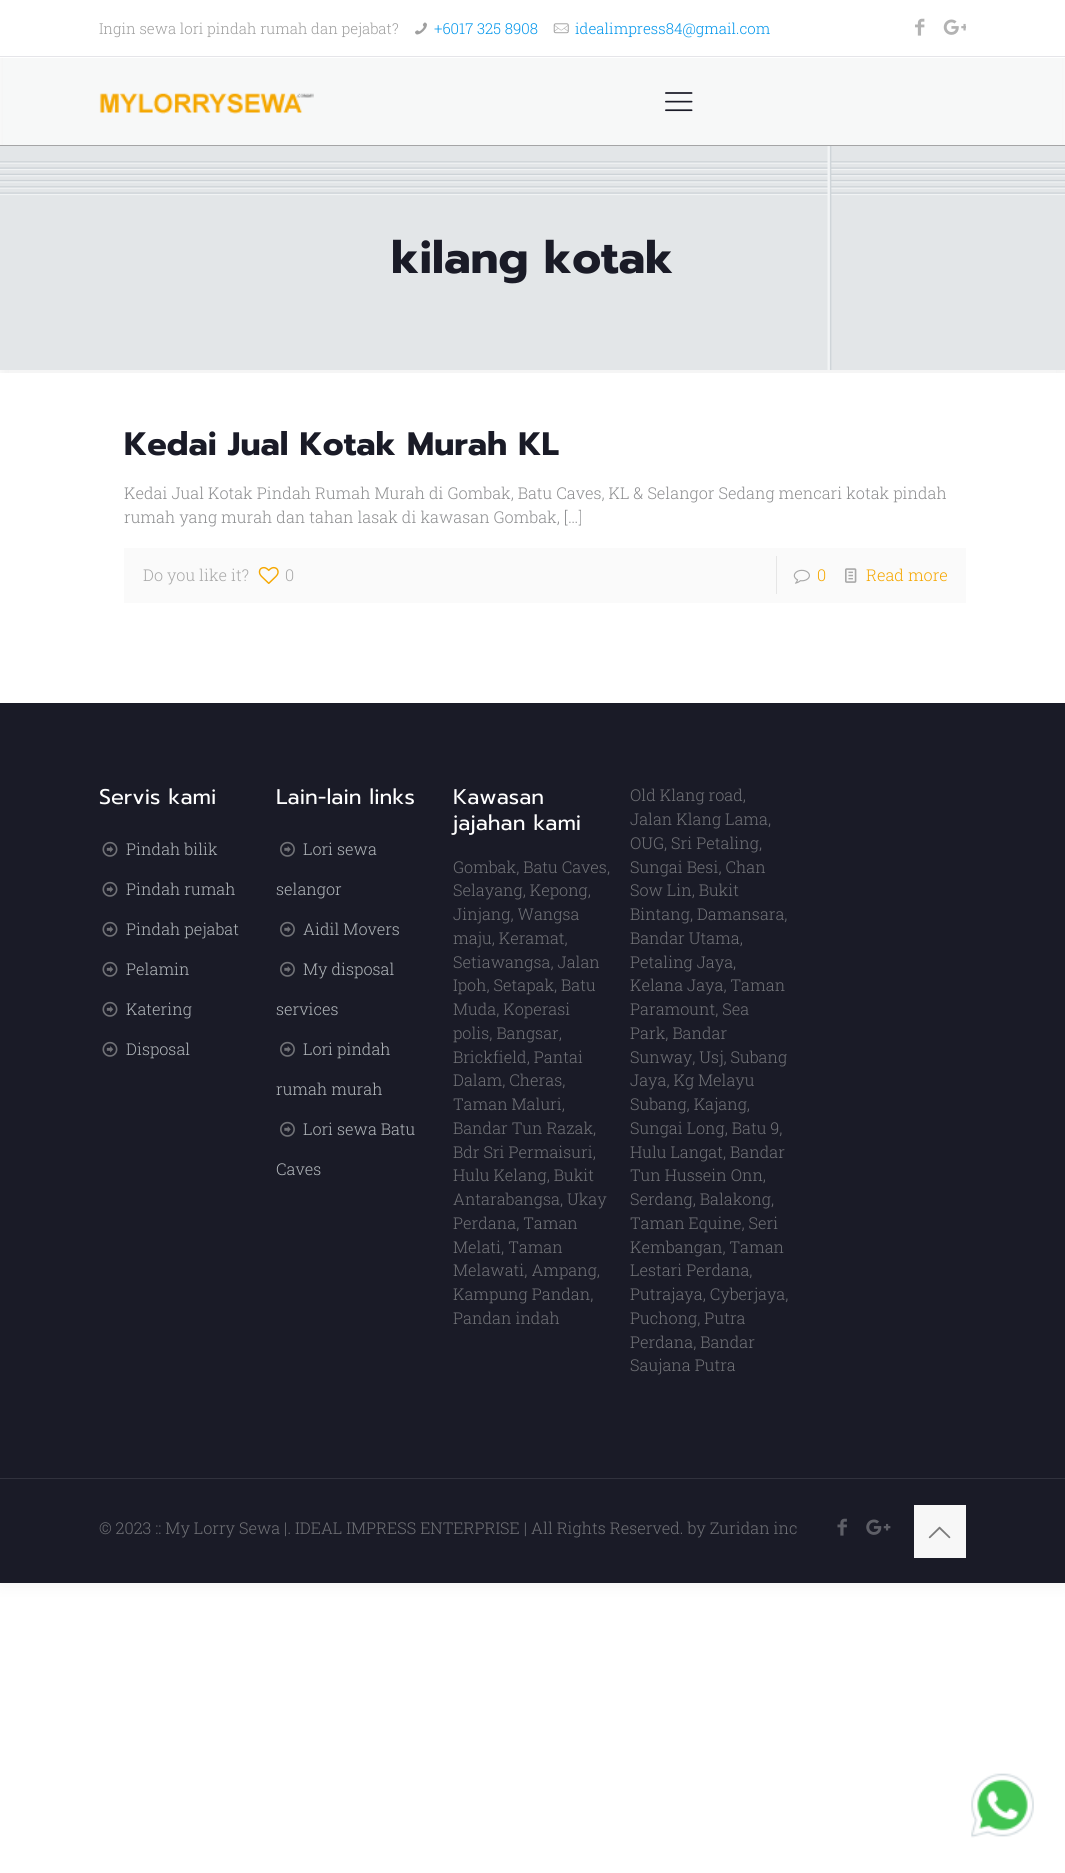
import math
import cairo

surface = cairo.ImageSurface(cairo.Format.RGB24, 1065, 1873)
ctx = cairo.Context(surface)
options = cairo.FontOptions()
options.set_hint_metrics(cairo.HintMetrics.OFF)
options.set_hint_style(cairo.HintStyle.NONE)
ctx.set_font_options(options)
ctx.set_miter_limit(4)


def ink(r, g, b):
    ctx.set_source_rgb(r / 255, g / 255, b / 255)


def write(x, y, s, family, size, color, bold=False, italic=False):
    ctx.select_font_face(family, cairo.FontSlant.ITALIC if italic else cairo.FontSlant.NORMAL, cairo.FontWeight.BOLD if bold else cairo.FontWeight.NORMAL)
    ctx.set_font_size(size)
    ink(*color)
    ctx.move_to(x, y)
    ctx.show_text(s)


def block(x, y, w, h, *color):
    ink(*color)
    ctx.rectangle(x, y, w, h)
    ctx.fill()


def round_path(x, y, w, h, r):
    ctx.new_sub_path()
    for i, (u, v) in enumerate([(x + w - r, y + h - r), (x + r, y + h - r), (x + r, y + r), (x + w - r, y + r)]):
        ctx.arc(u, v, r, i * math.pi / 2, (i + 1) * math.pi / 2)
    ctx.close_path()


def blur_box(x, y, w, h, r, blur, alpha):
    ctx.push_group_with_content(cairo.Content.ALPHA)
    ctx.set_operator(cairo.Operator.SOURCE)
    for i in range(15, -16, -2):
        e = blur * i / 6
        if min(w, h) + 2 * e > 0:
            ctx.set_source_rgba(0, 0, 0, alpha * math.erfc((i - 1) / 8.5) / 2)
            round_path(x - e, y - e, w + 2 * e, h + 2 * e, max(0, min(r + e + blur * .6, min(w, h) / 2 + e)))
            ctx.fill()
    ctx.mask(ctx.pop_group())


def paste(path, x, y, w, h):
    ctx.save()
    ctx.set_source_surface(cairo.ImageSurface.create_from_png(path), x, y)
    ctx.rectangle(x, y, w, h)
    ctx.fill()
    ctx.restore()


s1 = dict(family="Roboto Slab Light", size=15, color=(159, 159, 159))
s2 = dict(family="Roboto Slab Light", size=15, color=(0, 149, 235))
s3 = dict(family="Prompt", size=45, color=(26, 27, 39), bold=True)
s4 = dict(family="Prompt", size=32.5, color=(26, 27, 39), bold=True)
s5 = dict(family="Roboto Slab Light", size=16.25, color=(141, 142, 144))
s6 = dict(family="Roboto Slab Light", size=16.25, color=(168, 168, 168))
s7 = dict(family="Roboto Slab Light", size=16.25, color=(245, 167, 0))
s8 = dict(family="Prompt", size=21.25, color=(255, 255, 255))
s9 = dict(family="Roboto Slab Light", size=16.25, color=(177, 182, 186))
s10 = dict(family="Roboto Slab Light", size=16.25, color=(112, 113, 118))

ink(255, 255, 255)
ctx.paint()
ink(0, 0, 0)
blur_box(0, 0, 1065, 1583, 0, 9.5, 0.06)
block(0, 373, 1065, 330, 255, 255, 255)
paste("pic1.png", 0, 146, 1065, 224)
block(0, 0, 1065, 58, 255, 255, 255)
block(0, 56, 1065, 1, 229, 229, 233)
write(99, 34, "Ingin sewa lori pindah rumah dan pejabat?", **s1)
paste("pic2.png", 415, 22, 12, 13)
write(434, 34, "+6017 325 8908", **s2)
paste("pic3.png", 553, 23, 16, 11)
write(575, 34, "idealimpress84@gmail.com", **s2)
paste("pic4.png", 915, 18, 10, 18)
paste("pic5.png", 943, 19, 23, 16)
block(3, 58, 1059, 87, 247, 248, 248)
block(0, 145, 1065, 1, 165, 165, 166)
paste("pic6.png", 99, 93, 215, 21)
paste("pic7.png", 665, 92, 28, 20)
write(391, 273, "kilang kotak", **s3)
block(9, 370, 1047, 3, 245, 245, 245)
write(124, 455, "Kedai Jual Kotak Murah KL", **s4)
write(124, 499, "Kedai Jual Kotak Pindah Rumah Murah di Gombak, Batu Caves, KL & Selangor Sedang mencari kotak pindah", **s5)
write(124, 523, "rumah yang murah dan tahan lasak di kawasan Gombak, […]", **s5)
block(124, 548, 842, 55, 250, 250, 250)
write(143, 581, "Do you like it?", **s6)
paste("pic8.png", 258, 566, 21, 18)
write(285, 581, "0", **s6)
block(776, 556, 1, 38, 230, 230, 230)
paste("pic9.png", 793, 569, 17, 15)
write(817, 581, "0", **s7)
paste("pic10.png", 845, 568, 12, 15)
write(866, 581, "Read more", **s7)
block(0, 703, 1065, 880, 26, 27, 39)
write(99, 804, "Servis kami", **s8)
paste("pic11.png", 102, 841, 16, 16)
write(126, 855, "Pindah bilik", **s9)
paste("pic11.png", 102, 881, 16, 16)
write(126, 895, "Pindah rumah", **s9)
paste("pic11.png", 102, 921, 16, 16)
write(126, 935, "Pindah pejabat", **s9)
paste("pic11.png", 102, 961, 16, 16)
write(126, 975, "Pelamin", **s9)
paste("pic11.png", 102, 1001, 16, 16)
write(126, 1015, "Katering", **s9)
paste("pic11.png", 102, 1041, 16, 16)
write(126, 1055, "Disposal", **s9)
write(276, 804, "Lain-lain links", **s8)
paste("pic12.png", 280, 841, 15, 16)
write(303, 855, "Lori sewa", **s9)
write(276, 895, "selangor", **s9)
paste("pic12.png", 280, 921, 15, 16)
write(303, 935, "Aidil Movers", **s9)
paste("pic12.png", 280, 961, 15, 16)
write(303, 975, "My disposal", **s9)
write(276, 1015, "services", **s9)
paste("pic12.png", 280, 1041, 15, 16)
write(303, 1055, "Lori pindah", **s9)
write(276, 1095, "rumah murah", **s9)
paste("pic12.png", 280, 1121, 15, 16)
write(303, 1135, "Lori sewa Batu", **s9)
write(276, 1175, "Caves", **s9)
write(453, 804, "Kawasan", **s8)
write(453, 830, "jajahan kami", **s8)
write(453, 873, "Gombak, Batu Caves,", **s10)
write(453, 896, "Selayang, Kepong,", **s10)
write(453, 920, "Jinjang, Wangsa", **s10)
write(453, 944, "maju, Keramat,", **s10)
write(453, 968, "Setiawangsa, Jalan", **s10)
write(453, 991, "Ipoh, Setapak, Batu", **s10)
write(453, 1015, "Muda, Koperasi", **s10)
write(453, 1039, "polis, Bangsar,", **s10)
write(453, 1063, "Brickfield, Pantai", **s10)
write(453, 1086, "Dalam, Cheras,", **s10)
write(453, 1110, "Taman Maluri,", **s10)
write(453, 1134, "Bandar Tun Razak,", **s10)
write(453, 1158, "Bdr Sri Permaisuri,", **s10)
write(453, 1181, "Hulu Kelang, Bukit", **s10)
write(453, 1205, "Antarabangsa, Ukay", **s10)
write(453, 1229, "Perdana, Taman", **s10)
write(453, 1253, "Melati, Taman", **s10)
write(453, 1276, "Melawati, Ampang,", **s10)
write(453, 1300, "Kampung Pandan,", **s10)
write(453, 1324, "Pandan indah", **s10)
write(630, 801, "Old Klang road,", **s10)
write(630, 825, "Jalan Klang Lama,", **s10)
write(630, 849, "OUG, Sri Petaling,", **s10)
write(630, 873, "Sungai Besi, Chan", **s10)
write(630, 896, "Sow Lin, Bukit", **s10)
write(630, 920, "Bintang, Damansara,", **s10)
write(630, 944, "Bandar Utama,", **s10)
write(630, 968, "Petaling Jaya,", **s10)
write(630, 991, "Kelana Jaya, Taman", **s10)
write(630, 1015, "Paramount, Sea", **s10)
write(630, 1039, "Park, Bandar", **s10)
write(630, 1063, "Sunway, Usj, Subang", **s10)
write(630, 1086, "Jaya, Kg Melayu", **s10)
write(630, 1110, "Subang, Kajang,", **s10)
write(630, 1134, "Sungai Long, Batu 9,", **s10)
write(630, 1158, "Hulu Langat, Bandar", **s10)
write(630, 1181, "Tun Hussein Onn,", **s10)
write(630, 1205, "Serdang, Balakong,", **s10)
write(630, 1229, "Taman Equine, Seri", **s10)
write(630, 1253, "Kembangan, Taman", **s10)
write(630, 1276, "Lestari Perdana,", **s10)
write(630, 1300, "Putrajaya, Cyberjaya,", **s10)
write(630, 1324, "Puchong, Putra", **s10)
write(630, 1348, "Perdana, Bandar", **s10)
write(630, 1371, "Saujana Putra", **s10)
paste("pic13.png", 971, 1773, 63, 65)
block(0, 1478, 1065, 1, 49, 50, 61)
write(99, 1534, "© 2023 :: My Lorry Sewa |. IDEAL IMPRESS ENTERPRISE | All Rights Reserved. by Zuridan inc", **s10)
paste("pic14.png", 837, 1518, 10, 18)
paste("pic15.png", 866, 1519, 25, 16)
block(914, 1505, 52, 53, 247, 247, 247)
paste("pic16.png", 928, 1526, 23, 13)
surface.write_to_png("screenshot.png")
